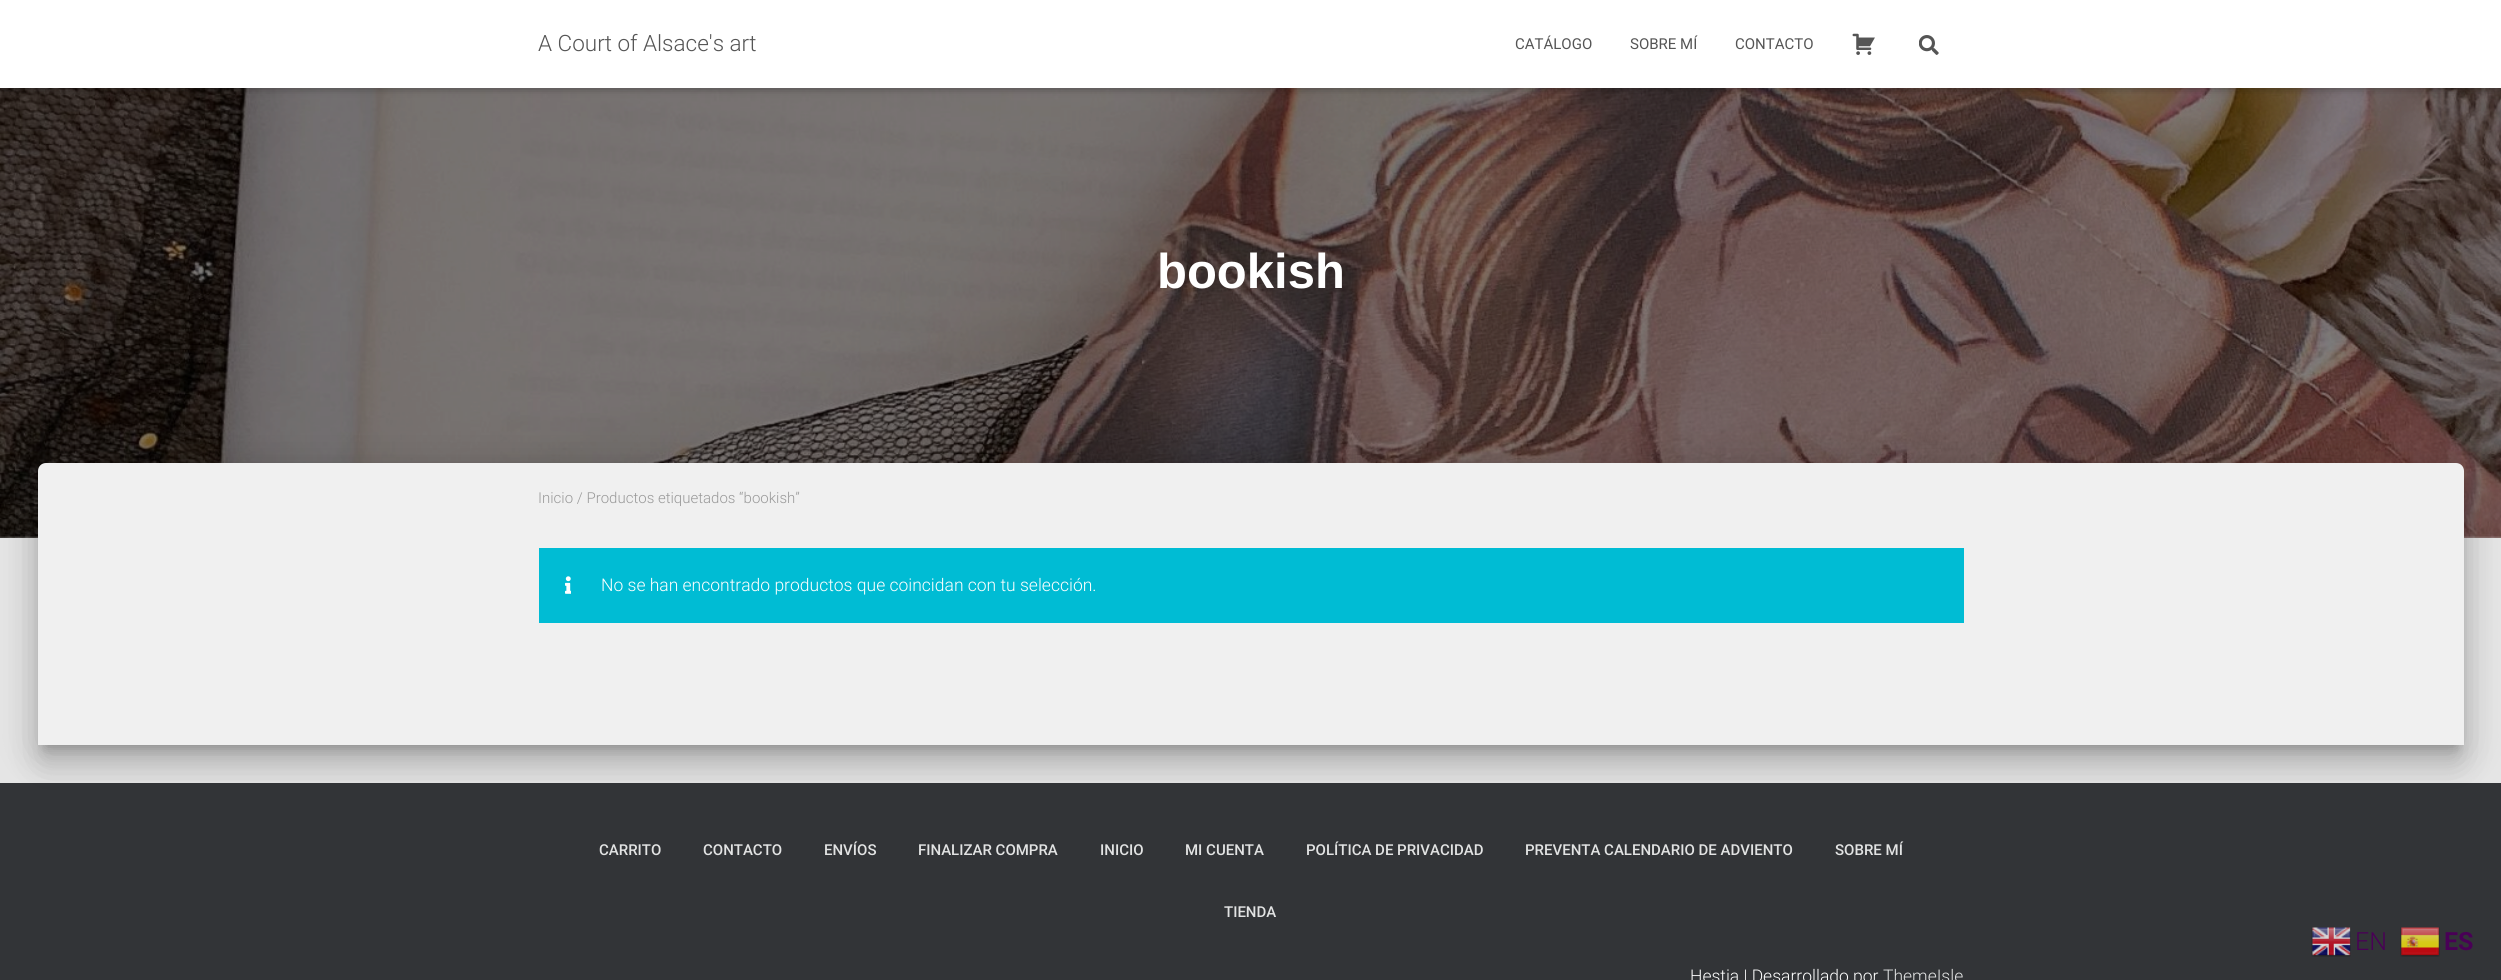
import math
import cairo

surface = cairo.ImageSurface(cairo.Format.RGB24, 2501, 980)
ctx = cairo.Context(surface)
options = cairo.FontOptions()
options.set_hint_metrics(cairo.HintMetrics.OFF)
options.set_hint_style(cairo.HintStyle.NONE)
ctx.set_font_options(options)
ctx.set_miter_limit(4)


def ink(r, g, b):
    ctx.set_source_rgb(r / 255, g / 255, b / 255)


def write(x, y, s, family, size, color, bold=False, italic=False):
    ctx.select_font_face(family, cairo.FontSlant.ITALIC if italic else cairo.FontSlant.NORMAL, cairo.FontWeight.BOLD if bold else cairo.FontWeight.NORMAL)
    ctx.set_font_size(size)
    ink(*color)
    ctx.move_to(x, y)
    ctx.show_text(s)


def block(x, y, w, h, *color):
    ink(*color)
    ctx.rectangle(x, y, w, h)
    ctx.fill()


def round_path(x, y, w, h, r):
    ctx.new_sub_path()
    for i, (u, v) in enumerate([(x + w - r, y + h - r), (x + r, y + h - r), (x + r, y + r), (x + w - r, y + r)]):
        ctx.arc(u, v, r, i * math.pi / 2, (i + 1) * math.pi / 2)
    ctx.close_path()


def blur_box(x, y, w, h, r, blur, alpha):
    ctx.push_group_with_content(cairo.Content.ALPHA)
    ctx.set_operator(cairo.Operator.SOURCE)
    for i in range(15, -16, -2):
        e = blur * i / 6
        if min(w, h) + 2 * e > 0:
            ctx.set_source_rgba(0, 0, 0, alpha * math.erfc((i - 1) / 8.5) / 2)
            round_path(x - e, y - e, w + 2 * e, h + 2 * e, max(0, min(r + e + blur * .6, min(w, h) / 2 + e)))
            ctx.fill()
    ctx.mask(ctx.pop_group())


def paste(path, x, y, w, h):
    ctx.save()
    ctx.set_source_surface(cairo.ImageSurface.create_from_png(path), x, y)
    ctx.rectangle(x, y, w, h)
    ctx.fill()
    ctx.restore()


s1 = dict(family="Roboto Light", size=22.5, color=(85, 85, 85))
s2 = dict(family="Roboto", size=15, color=(85, 85, 85))
s3 = dict(family="Liberation Sans", size=49, color=(255, 255, 255), bold=True)
s4 = dict(family="Roboto Light", size=15, color=(153, 153, 153))
s5 = dict(family="Roboto Light", size=17.5, color=(255, 255, 255))
s6 = dict(family="Roboto Medium", size=15, color=(226, 227, 227))
s7 = dict(family="Roboto Light", size=17.5, color=(226, 227, 227))
s8 = dict(family="Roboto Light", size=25, color=(73, 0, 86))
s9 = dict(family="Roboto", size=25, color=(73, 0, 86), bold=True)

ink(229, 229, 229)
ctx.paint()
paste("pic3.png", 0, 88, 2501, 450)
ink(0, 0, 0)
blur_box(3, 8, 2496, 82, 0, 3, 0.1)
blur_box(0, 1, 2501, 88, 0, 6, 0.12)
blur_box(8, 9, 2486, 72, 0, 6, 0.42)
block(0, 0, 2501, 88, 255, 255, 255)
write(538, 51, "A Court of Alsace's art", **s1)
write(1515, 49, "CATÁLOGO", **s2)
write(1630, 49, "SOBRE MÍ", **s2)
write(1735, 49, "CONTACTO", **s2)
paste("pic1.png", 1852, 33, 23, 22)
paste("pic2.png", 1919, 35, 20, 20)
write(1157, 288, "bookish", **s3)
ink(0, 0, 0)
blur_box(44, 479, 2414, 270, 1, 6, 0.2)
block(0, 783, 2501, 197, 50, 52, 55)
ink(0, 0, 0)
blur_box(31, 464, 2439, 295, 14, 19, 0.12)
blur_box(35, 480, 2431, 288, 10, 15, 0.14)
ink(240, 240, 240)
ctx.new_path()
ctx.move_to(46, 463)
ctx.line_to(2456, 463)
ctx.curve_to(2460.5, 463, 2464, 466.5, 2464, 471)
ctx.line_to(2464, 745)
ctx.line_to(38, 745)
ctx.line_to(38, 471)
ctx.curve_to(38, 466.5, 41.5, 463, 46, 463)
ctx.close_path()
ctx.fill()
write(538, 503, "Inicio / Productos etiquetados “bookish”", **s4)
block(539, 548, 1425, 75, 0, 188, 212)
paste("pic4.png", 565, 576, 6, 18)
write(601, 591, "No se han encontrado productos que coincidan con tu selección.", **s5)
write(599, 855, "CARRITO", **s6)
write(703, 855, "CONTACTO", **s6)
write(824, 855, "ENVÍOS", **s6)
write(918, 855, "FINALIZAR COMPRA", **s6)
write(1100, 855, "INICIO", **s6)
write(1185, 855, "MI CUENTA", **s6)
write(1306, 855, "POLÍTICA DE PRIVACIDAD", **s6)
write(1525, 855, "PREVENTA CALENDARIO DE ADVIENTO", **s6)
write(1835, 855, "SOBRE MÍ", **s6)
write(1224, 917, "TIENDA", **s6)
write(1690, 982, "Hestia | Desarrollado por", **s5)
write(1883, 982, "ThemeIsle", **s7)
paste("pic5.png", 2311, 927, 40, 30)
write(2355, 950, "EN", **s8)
paste("pic6.png", 2400, 927, 40, 30)
write(2444, 950, "ES", **s9)
surface.write_to_png("screenshot.png")
